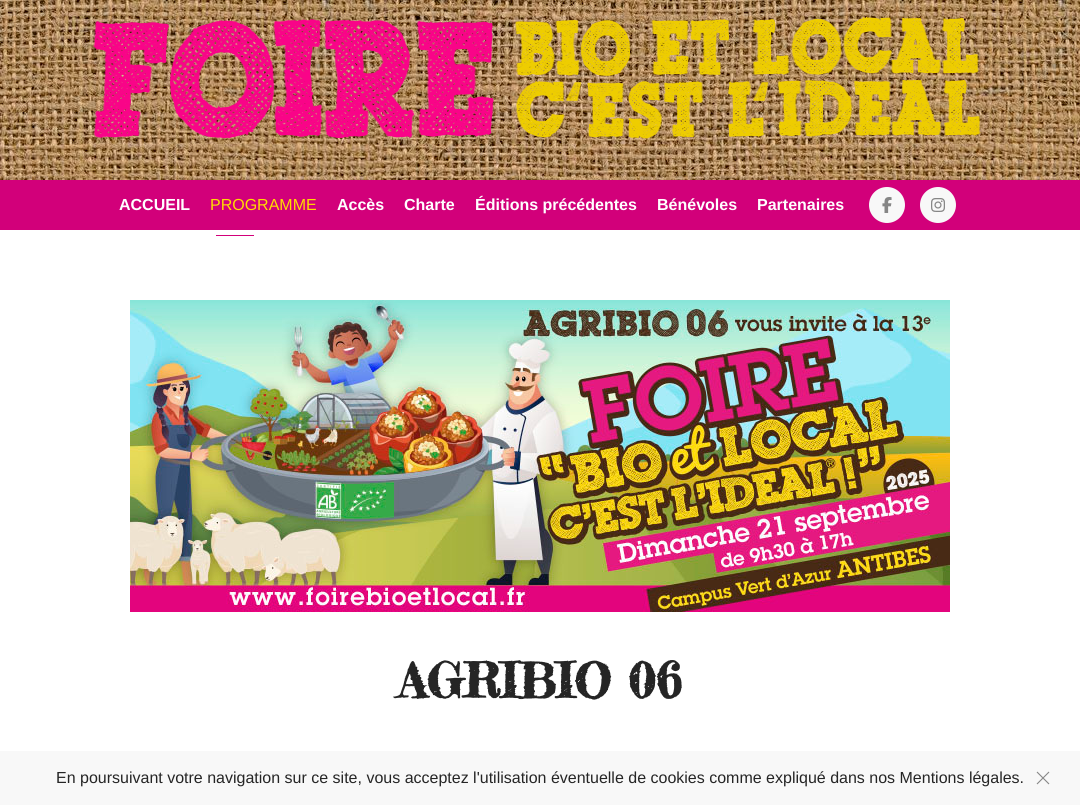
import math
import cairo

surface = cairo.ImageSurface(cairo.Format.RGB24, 1080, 805)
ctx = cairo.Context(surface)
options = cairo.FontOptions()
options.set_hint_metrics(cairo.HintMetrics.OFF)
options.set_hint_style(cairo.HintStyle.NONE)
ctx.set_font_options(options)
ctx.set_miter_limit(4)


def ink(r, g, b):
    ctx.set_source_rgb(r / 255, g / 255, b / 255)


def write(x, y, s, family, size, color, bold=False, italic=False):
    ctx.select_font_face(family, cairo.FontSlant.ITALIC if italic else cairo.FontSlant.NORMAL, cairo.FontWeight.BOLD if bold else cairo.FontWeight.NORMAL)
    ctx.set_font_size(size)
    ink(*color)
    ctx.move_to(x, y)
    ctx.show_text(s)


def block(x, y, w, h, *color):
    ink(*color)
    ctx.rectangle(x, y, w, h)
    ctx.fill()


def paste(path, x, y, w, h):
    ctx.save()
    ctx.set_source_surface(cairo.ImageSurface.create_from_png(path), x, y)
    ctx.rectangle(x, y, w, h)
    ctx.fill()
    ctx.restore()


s1 = dict(family="Liberation Sans", size=16, color=(255, 255, 255), bold=True)
s2 = dict(family="Liberation Sans", size=16, color=(255, 220, 0))
s3 = dict(family="Fredericka the Great", size=48, color=(37, 37, 37), bold=True)
s4 = dict(family="Liberation Sans", size=16, color=(37, 37, 37))

ink(255, 255, 255)
ctx.paint()
paste("pic1.png", 0, 0, 1080, 180)
paste("pic2.png", 93, 17, 888, 122)
block(0, 180, 1080, 50, 210, 0, 122)
write(119, 210, "ACCUEIL", **s1)
write(210, 210, "PROGRAMME", **s2)
block(216, 235, 38, 1, 210, 0, 122)
write(337, 210, "Accès", **s1)
write(404, 210, "Charte", **s1)
write(475, 210, "Éditions précédentes", **s1)
write(657, 210, "Bénévoles", **s1)
write(757, 210, "Partenaires", **s1)
ink(248, 248, 248)
ctx.new_path()
ctx.arc(887, 205, 18, 0, 2 * math.pi)
ctx.fill()
paste("pic3.png", 882, 197, 10, 16)
ctx.arc(938, 205, 18, 0, 2 * math.pi)
ctx.fill()
paste("pic4.png", 931, 198, 14, 14)
paste("pic5.png", 130, 300, 820, 312)
write(398, 698, "AGRIBIO 06", **s3)
block(0, 751, 1080, 54, 248, 248, 248)
write(56, 783, "En poursuivant votre navigation sur ce site, vous acceptez l'utilisation éventuelle de cookies comme expliqué dans nos Mentions légales.", **s4)
ctx.new_path()
ctx.move_to(1037, 772)
ctx.line_to(1049, 784)
ctx.move_to(1049, 772)
ctx.line_to(1037, 784)
ink(134, 134, 134)
ctx.set_line_width(1.1)
ctx.stroke()
surface.write_to_png("screenshot.png")
